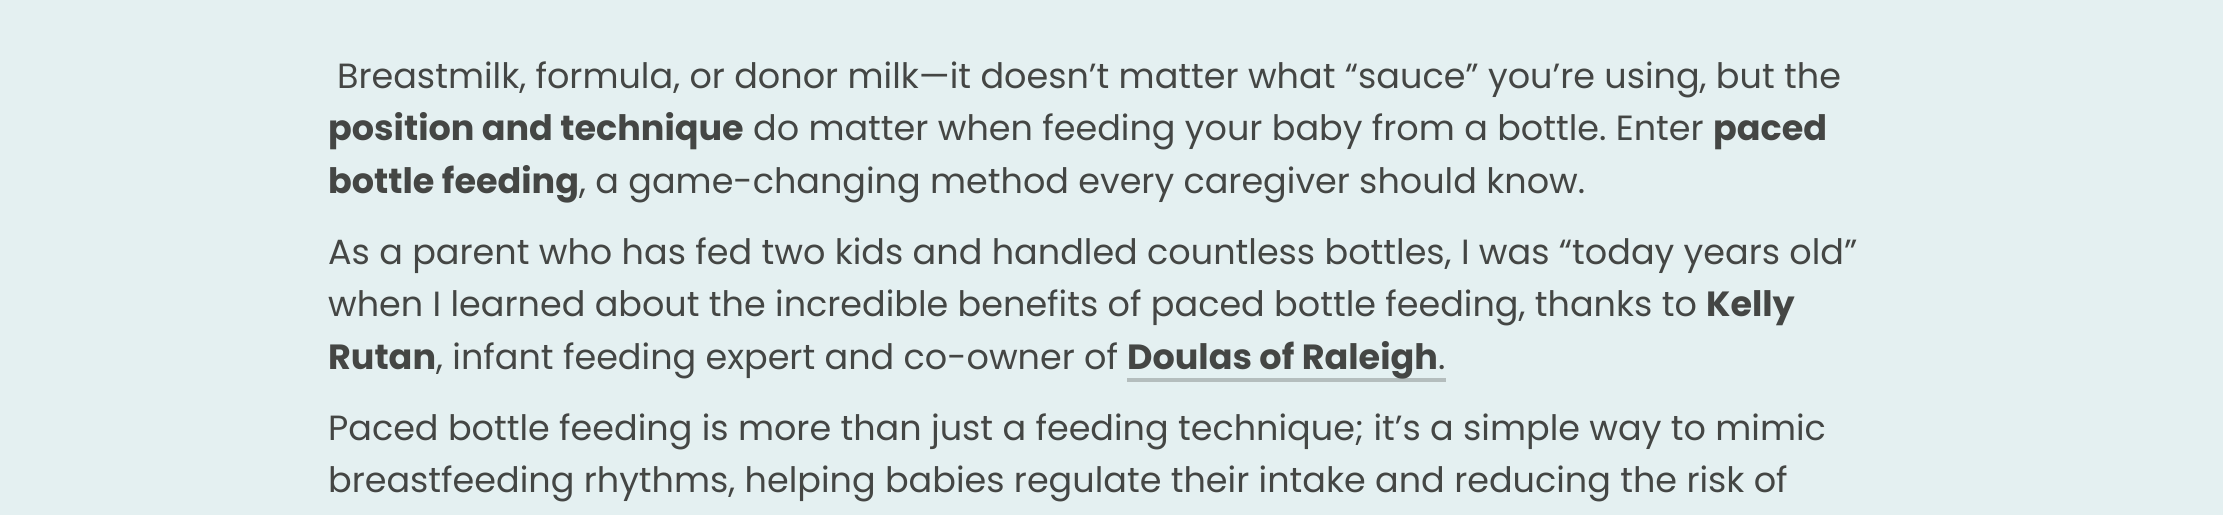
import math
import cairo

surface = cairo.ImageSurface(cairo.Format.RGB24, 2223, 515)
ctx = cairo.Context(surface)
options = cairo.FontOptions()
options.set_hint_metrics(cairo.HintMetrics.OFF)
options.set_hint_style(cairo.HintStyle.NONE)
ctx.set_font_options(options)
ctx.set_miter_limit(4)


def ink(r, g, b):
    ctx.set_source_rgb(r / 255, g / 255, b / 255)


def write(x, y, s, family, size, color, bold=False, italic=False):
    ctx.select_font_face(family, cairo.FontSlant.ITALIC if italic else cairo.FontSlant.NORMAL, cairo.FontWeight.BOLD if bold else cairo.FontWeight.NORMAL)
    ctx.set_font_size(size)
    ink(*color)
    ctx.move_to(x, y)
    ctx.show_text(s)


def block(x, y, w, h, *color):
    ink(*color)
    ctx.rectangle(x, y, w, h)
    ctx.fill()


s1 = dict(family="Poppins", size=35, color=(68, 70, 68))
s2 = dict(family="Poppins", size=35, color=(68, 70, 68), bold=True)

ink(228, 240, 241)
ctx.paint()
write(337, 88, "Breastmilk, formula, or donor milk—it doesn’t matter what “sauce” you’re using, but the", **s1)
write(328, 140, "position and technique", **s2)
write(753, 140, "do matter when feeding your baby from a bottle. Enter", **s1)
write(1713, 140, "paced", **s2)
write(328, 193, "bottle feeding", **s2)
write(579, 193, ", a game-changing method every caregiver should know.", **s1)
write(328, 264, "As a parent who has fed two kids and handled countless bottles, I was “today years old”", **s1)
write(328, 316, "when I learned about the incredible benefits of paced bottle feeding, thanks to", **s1)
write(1706, 316, "Kelly", **s2)
write(328, 369, "Rutan", **s2)
write(436, 369, ", infant feeding expert and co-owner of", **s1)
block(1127, 378, 319, 4, 180, 189, 189)
write(1127, 369, "Doulas of Raleigh", **s2)
write(1438, 369, ".", **s1)
write(328, 440, "Paced bottle feeding is more than just a feeding technique; it’s a simple way to mimic", **s1)
write(328, 492, "breastfeeding rhythms, helping babies regulate their intake and reducing the risk of", **s1)
surface.write_to_png("screenshot.png")
